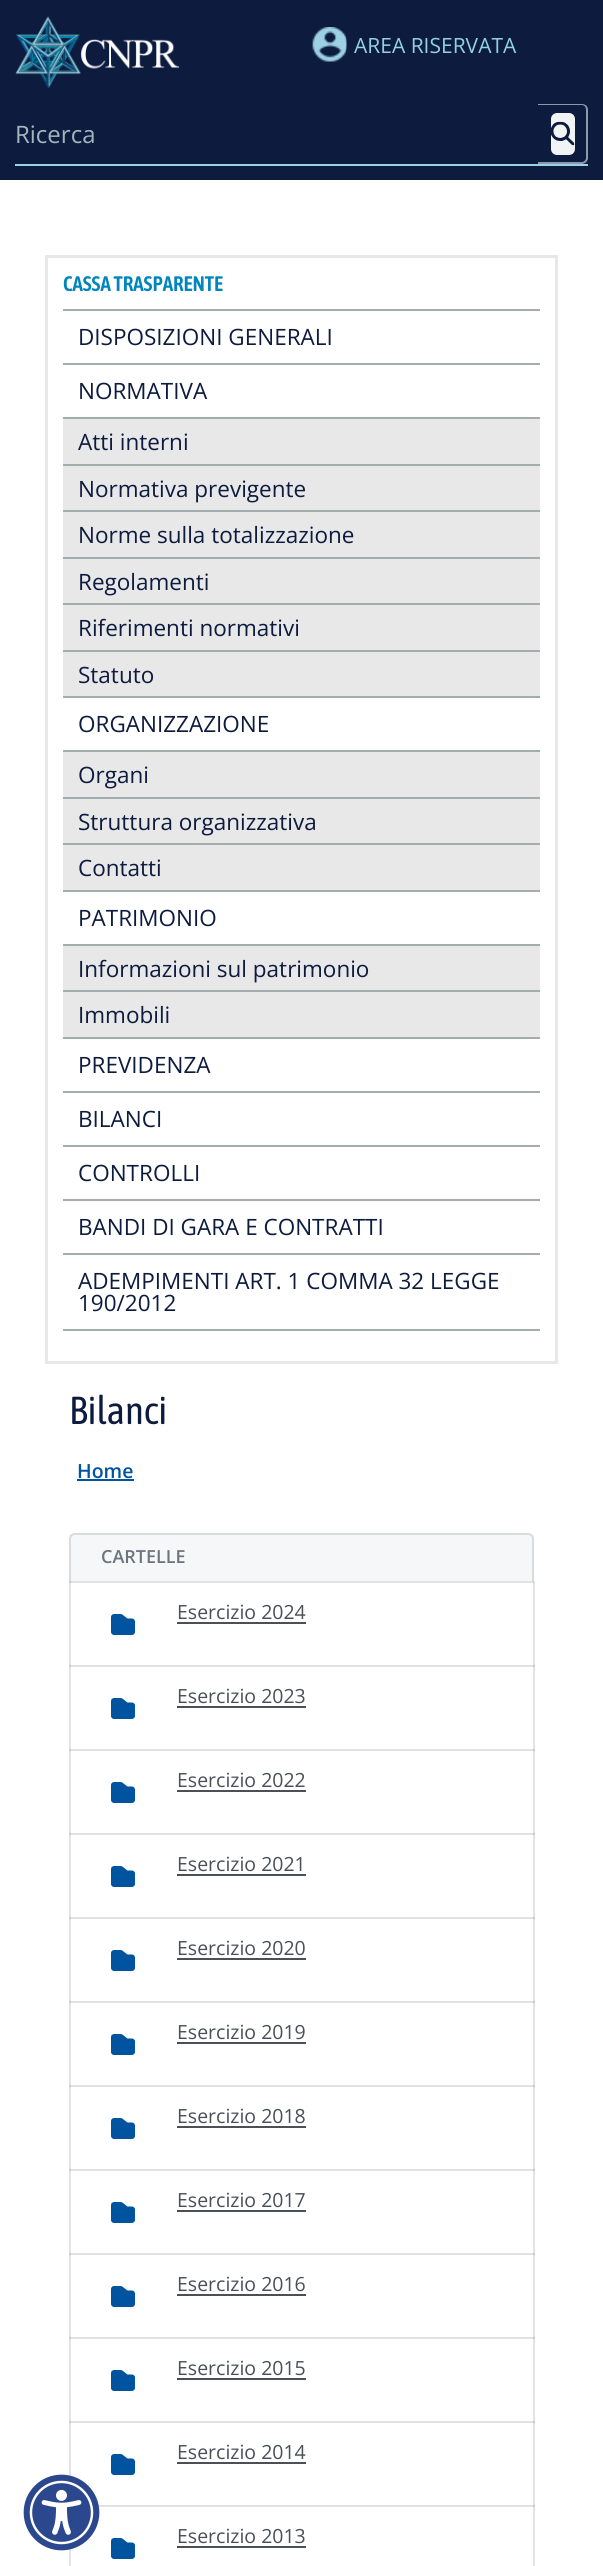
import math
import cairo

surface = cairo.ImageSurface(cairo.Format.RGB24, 603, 2566)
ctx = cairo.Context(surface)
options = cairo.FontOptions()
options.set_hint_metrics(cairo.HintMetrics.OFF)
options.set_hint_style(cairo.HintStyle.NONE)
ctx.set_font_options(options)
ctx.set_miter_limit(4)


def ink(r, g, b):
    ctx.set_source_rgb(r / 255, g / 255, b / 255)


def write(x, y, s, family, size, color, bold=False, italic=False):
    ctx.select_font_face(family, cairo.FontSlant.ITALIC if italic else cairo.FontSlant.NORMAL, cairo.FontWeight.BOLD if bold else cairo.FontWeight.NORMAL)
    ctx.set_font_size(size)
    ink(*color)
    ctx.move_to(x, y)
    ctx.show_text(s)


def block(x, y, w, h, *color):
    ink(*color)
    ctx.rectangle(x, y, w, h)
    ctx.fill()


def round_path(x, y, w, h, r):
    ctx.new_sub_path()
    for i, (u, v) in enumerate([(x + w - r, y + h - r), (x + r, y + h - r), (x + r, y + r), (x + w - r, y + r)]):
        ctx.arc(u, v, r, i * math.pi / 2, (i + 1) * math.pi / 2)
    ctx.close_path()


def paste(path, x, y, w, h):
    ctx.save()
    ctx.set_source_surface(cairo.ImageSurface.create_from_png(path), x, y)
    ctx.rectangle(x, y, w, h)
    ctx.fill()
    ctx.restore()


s1 = dict(family="Open Sans", size=21, color=(146, 208, 227))
s2 = dict(family="Open Sans", size=24, color=(166, 180, 190))
s3 = dict(family="Asap Condensed SemiBold", size=21, color=(0, 133, 189))
s4 = dict(family="Open Sans", size=22.5, color=(13, 27, 62))
s5 = dict(family="Asap Condensed", size=39, color=(13, 27, 62))
s6 = dict(family="Open Sans SemiBold", size=19.5, color=(0, 83, 159))
s7 = dict(family="Open Sans SemiBold", size=18, color=(108, 117, 125))
s8 = dict(family="Open Sans", size=19.5, color=(73, 80, 87))

ink(13, 27, 62)
ctx.paint()
paste("pic1.png", 15, 16, 165, 73)
paste("pic2.png", 312, 27, 35, 35)
write(354, 53, "AREA RISERVATA", **s1)
block(15, 164, 573, 2, 156, 208, 226)
ink(14, 27, 59)
ctx.new_path()
ctx.move_to(21, 105)
ctx.line_to(538, 105)
ctx.line_to(538, 164)
ctx.line_to(539, 164)
ctx.line_to(539, 104)
ctx.line_to(21, 104)
ctx.curve_to(17, 104, 15, 107, 15, 111)
ctx.curve_to(15, 108, 18, 105, 21, 105)
ctx.close_path()
ctx.fill()
write(15, 143, "Ricerca", **s2)
ink(134, 156, 173)
ctx.set_fill_rule(cairo.FillRule.EVEN_ODD)
ctx.new_path()
ctx.move_to(538, 104)
ctx.line_to(582, 104)
ctx.curve_to(585, 104, 588, 106, 588, 110)
ctx.line_to(588, 158)
ctx.curve_to(588, 161, 585, 164, 582, 164)
ctx.line_to(538, 164)
ctx.close_path()
ctx.move_to(538, 105)
ctx.line_to(582, 105)
ctx.curve_to(584, 105, 586, 107, 586, 110)
ctx.line_to(586, 158)
ctx.curve_to(586, 160, 584, 162, 582, 162)
ctx.line_to(538, 162)
ctx.close_path()
ctx.fill()
ink(240, 244, 244)
round_path(551, 113, 24, 42, 6)
ctx.fill()
paste("pic3.png", 551, 121, 24, 25)
block(0, 180, 603, 2386, 255, 255, 255)
ink(245, 247, 248)
ctx.new_path()
ctx.move_to(75, 1534)
ctx.line_to(528, 1534)
ctx.curve_to(531, 1534, 533, 1536, 533, 1539)
ctx.line_to(533, 1582)
ctx.line_to(70, 1582)
ctx.line_to(70, 1539)
ctx.curve_to(70, 1536, 72, 1534, 75, 1534)
ctx.close_path()
ctx.fill_preserve()
ink(217, 219, 220)
ctx.stroke()
block(69, 1581, 465, 2, 226, 226, 226)
ctx.set_source_rgba(0.094, 0.09, 0.09, 0.12)
ctx.rectangle(69, 1581, 2, 86)
ctx.fill()
ctx.rectangle(533, 1581, 2, 86)
ctx.fill()
block(69, 1665, 465, 2, 226, 226, 226)
ctx.set_source_rgba(0.094, 0.09, 0.09, 0.12)
ctx.rectangle(69, 1665, 2, 86)
ctx.fill()
ctx.rectangle(533, 1665, 2, 86)
ctx.fill()
block(69, 1749, 465, 2, 226, 226, 226)
ctx.set_source_rgba(0.094, 0.09, 0.09, 0.12)
ctx.rectangle(69, 1749, 2, 86)
ctx.fill()
ctx.rectangle(533, 1749, 2, 86)
ctx.fill()
block(69, 1833, 465, 2, 226, 226, 226)
ctx.set_source_rgba(0.094, 0.09, 0.09, 0.12)
ctx.rectangle(69, 1833, 2, 86)
ctx.fill()
ctx.rectangle(533, 1833, 2, 86)
ctx.fill()
block(69, 1917, 465, 2, 226, 226, 226)
ctx.set_source_rgba(0.094, 0.09, 0.09, 0.12)
ctx.rectangle(69, 1917, 2, 86)
ctx.fill()
ctx.rectangle(533, 1917, 2, 86)
ctx.fill()
block(69, 2001, 465, 2, 226, 226, 226)
ctx.set_source_rgba(0.094, 0.09, 0.09, 0.12)
ctx.rectangle(69, 2001, 2, 86)
ctx.fill()
ctx.rectangle(533, 2001, 2, 86)
ctx.fill()
block(69, 2085, 465, 2, 226, 226, 226)
ctx.set_source_rgba(0.094, 0.09, 0.09, 0.12)
ctx.rectangle(69, 2085, 2, 86)
ctx.fill()
ctx.rectangle(533, 2085, 2, 86)
ctx.fill()
block(69, 2169, 465, 2, 226, 226, 226)
ctx.set_source_rgba(0.094, 0.09, 0.09, 0.12)
ctx.rectangle(69, 2169, 2, 86)
ctx.fill()
ctx.rectangle(533, 2169, 2, 86)
ctx.fill()
block(69, 2253, 465, 2, 226, 226, 226)
ctx.set_source_rgba(0.094, 0.09, 0.09, 0.12)
ctx.rectangle(69, 2253, 2, 86)
ctx.fill()
ctx.rectangle(533, 2253, 2, 86)
ctx.fill()
block(69, 2337, 465, 2, 226, 226, 226)
ctx.set_source_rgba(0.094, 0.09, 0.09, 0.12)
ctx.rectangle(69, 2337, 2, 86)
ctx.fill()
ctx.rectangle(533, 2337, 2, 86)
ctx.fill()
block(69, 2421, 465, 2, 226, 226, 226)
ctx.set_source_rgba(0.094, 0.09, 0.09, 0.12)
ctx.rectangle(69, 2421, 2, 62)
ctx.fill()
ctx.rectangle(69, 2549, 2, 17)
ctx.fill()
ink(255, 254, 254)
ctx.new_path()
ctx.move_to(61, 2481)
ctx.curve_to(81.5, 2481, 98, 2496.5, 98, 2515.5)
ctx.curve_to(98, 2534.5, 81.5, 2550, 61, 2550)
ctx.curve_to(40.5, 2550, 24, 2534.5, 24, 2515.5)
ctx.curve_to(24, 2496.5, 40.5, 2481, 61, 2481)
ctx.close_path()
ctx.fill()
ctx.set_source_rgba(0.094, 0.09, 0.09, 0.12)
ctx.rectangle(533, 2421, 2, 86)
ctx.fill()
block(98, 2505, 436, 2, 226, 226, 226)
paste("pic4.png", 23, 2474, 77, 77)
ctx.rectangle(46.5, 256.5, 510, 1106)
ink(232, 232, 232)
ctx.set_line_width(3)
ctx.stroke()
write(63, 291, "CASSA TRASPARENTE", **s3)
block(63, 309, 477, 2, 163, 173, 176)
block(63, 363, 477, 2, 163, 173, 176)
write(78, 345, "DISPOSIZIONI GENERALI", **s4)
block(63, 696, 477, 2, 163, 173, 176)
write(78, 399, "NORMATIVA", **s4)
block(63, 419, 477, 277, 232, 232, 232)
block(63, 417, 477, 2, 163, 173, 176)
block(63, 464, 477, 2, 163, 173, 176)
write(78, 450, "Atti interni", **s4)
block(63, 510, 477, 2, 163, 173, 176)
write(78, 497, "Normativa previgente", **s4)
block(63, 557, 477, 2, 163, 173, 176)
write(78, 543, "Norme sulla totalizzazione", **s4)
block(63, 603, 477, 2, 163, 173, 176)
write(78, 590, "Regolamenti", **s4)
block(63, 650, 477, 2, 163, 173, 176)
write(78, 636, "Riferimenti normativi", **s4)
write(78, 683, "Statuto", **s4)
block(63, 890, 477, 2, 163, 173, 176)
write(78, 732, "ORGANIZZAZIONE", **s4)
block(63, 752, 477, 138, 232, 232, 232)
block(63, 750, 477, 2, 163, 173, 176)
block(63, 797, 477, 2, 163, 173, 176)
write(78, 783, "Organi", **s4)
block(63, 843, 477, 2, 163, 173, 176)
write(78, 830, "Struttura organizzativa", **s4)
write(78, 876, "Contatti", **s4)
block(63, 1037, 477, 2, 163, 173, 176)
write(78, 926, "PATRIMONIO", **s4)
block(63, 946, 477, 91, 232, 232, 232)
block(63, 944, 477, 2, 163, 173, 176)
block(63, 990, 477, 2, 163, 173, 176)
write(78, 977, "Informazioni sul patrimonio", **s4)
write(78, 1023, "Immobili", **s4)
block(63, 1091, 477, 2, 163, 173, 176)
write(78, 1073, "PREVIDENZA", **s4)
block(63, 1145, 477, 2, 163, 173, 176)
write(78, 1127, "BILANCI", **s4)
block(63, 1199, 477, 2, 163, 173, 176)
write(78, 1181, "CONTROLLI", **s4)
block(63, 1253, 477, 2, 163, 173, 176)
write(78, 1235, "BANDI DI GARA E CONTRATTI", **s4)
block(63, 1329, 477, 2, 163, 173, 176)
write(78, 1289, "ADEMPIMENTI ART. 1 COMMA 32 LEGGE", **s4)
write(78, 1311, "190/2012", **s4)
write(69, 1424, "Bilanci", **s5)
write(77, 1478, "Home", **s6)
block(77, 1479, 57, 2, 0, 83, 159)
write(101, 1563, "CARTELLE", **s7)
write(177, 1619, "Esercizio 2024", **s8)
block(177, 1622, 129, 2, 73, 80, 87)
paste("pic5.png", 111, 1614, 24, 21)
write(177, 1703, "Esercizio 2023", **s8)
block(177, 1706, 129, 2, 73, 80, 87)
paste("pic5.png", 111, 1698, 24, 21)
write(177, 1787, "Esercizio 2022", **s8)
block(177, 1790, 129, 2, 73, 80, 87)
paste("pic5.png", 111, 1782, 24, 21)
write(177, 1871, "Esercizio 2021", **s8)
block(177, 1874, 129, 2, 73, 80, 87)
paste("pic5.png", 111, 1866, 24, 21)
write(177, 1955, "Esercizio 2020", **s8)
block(177, 1958, 129, 2, 73, 80, 87)
paste("pic5.png", 111, 1950, 24, 21)
write(177, 2039, "Esercizio 2019", **s8)
block(177, 2042, 129, 2, 73, 80, 87)
paste("pic5.png", 111, 2034, 24, 21)
write(177, 2123, "Esercizio 2018", **s8)
block(177, 2126, 129, 2, 73, 80, 87)
paste("pic5.png", 111, 2118, 24, 21)
write(177, 2207, "Esercizio 2017", **s8)
block(177, 2210, 129, 2, 73, 80, 87)
paste("pic5.png", 111, 2202, 24, 21)
write(177, 2291, "Esercizio 2016", **s8)
block(177, 2294, 129, 2, 73, 80, 87)
paste("pic6.png", 111, 2286, 24, 21)
write(177, 2375, "Esercizio 2015", **s8)
block(177, 2378, 129, 2, 73, 80, 87)
paste("pic5.png", 111, 2370, 24, 21)
write(177, 2459, "Esercizio 2014", **s8)
block(177, 2462, 129, 2, 73, 80, 87)
paste("pic5.png", 111, 2454, 24, 21)
ctx.set_source_rgba(0.094, 0.09, 0.09, 0.12)
ctx.rectangle(533, 2505, 2, 61)
ctx.fill()
write(177, 2543, "Esercizio 2013", **s8)
block(177, 2546, 129, 2, 73, 80, 87)
paste("pic7.png", 111, 2538, 24, 21)
surface.write_to_png("screenshot.png")
